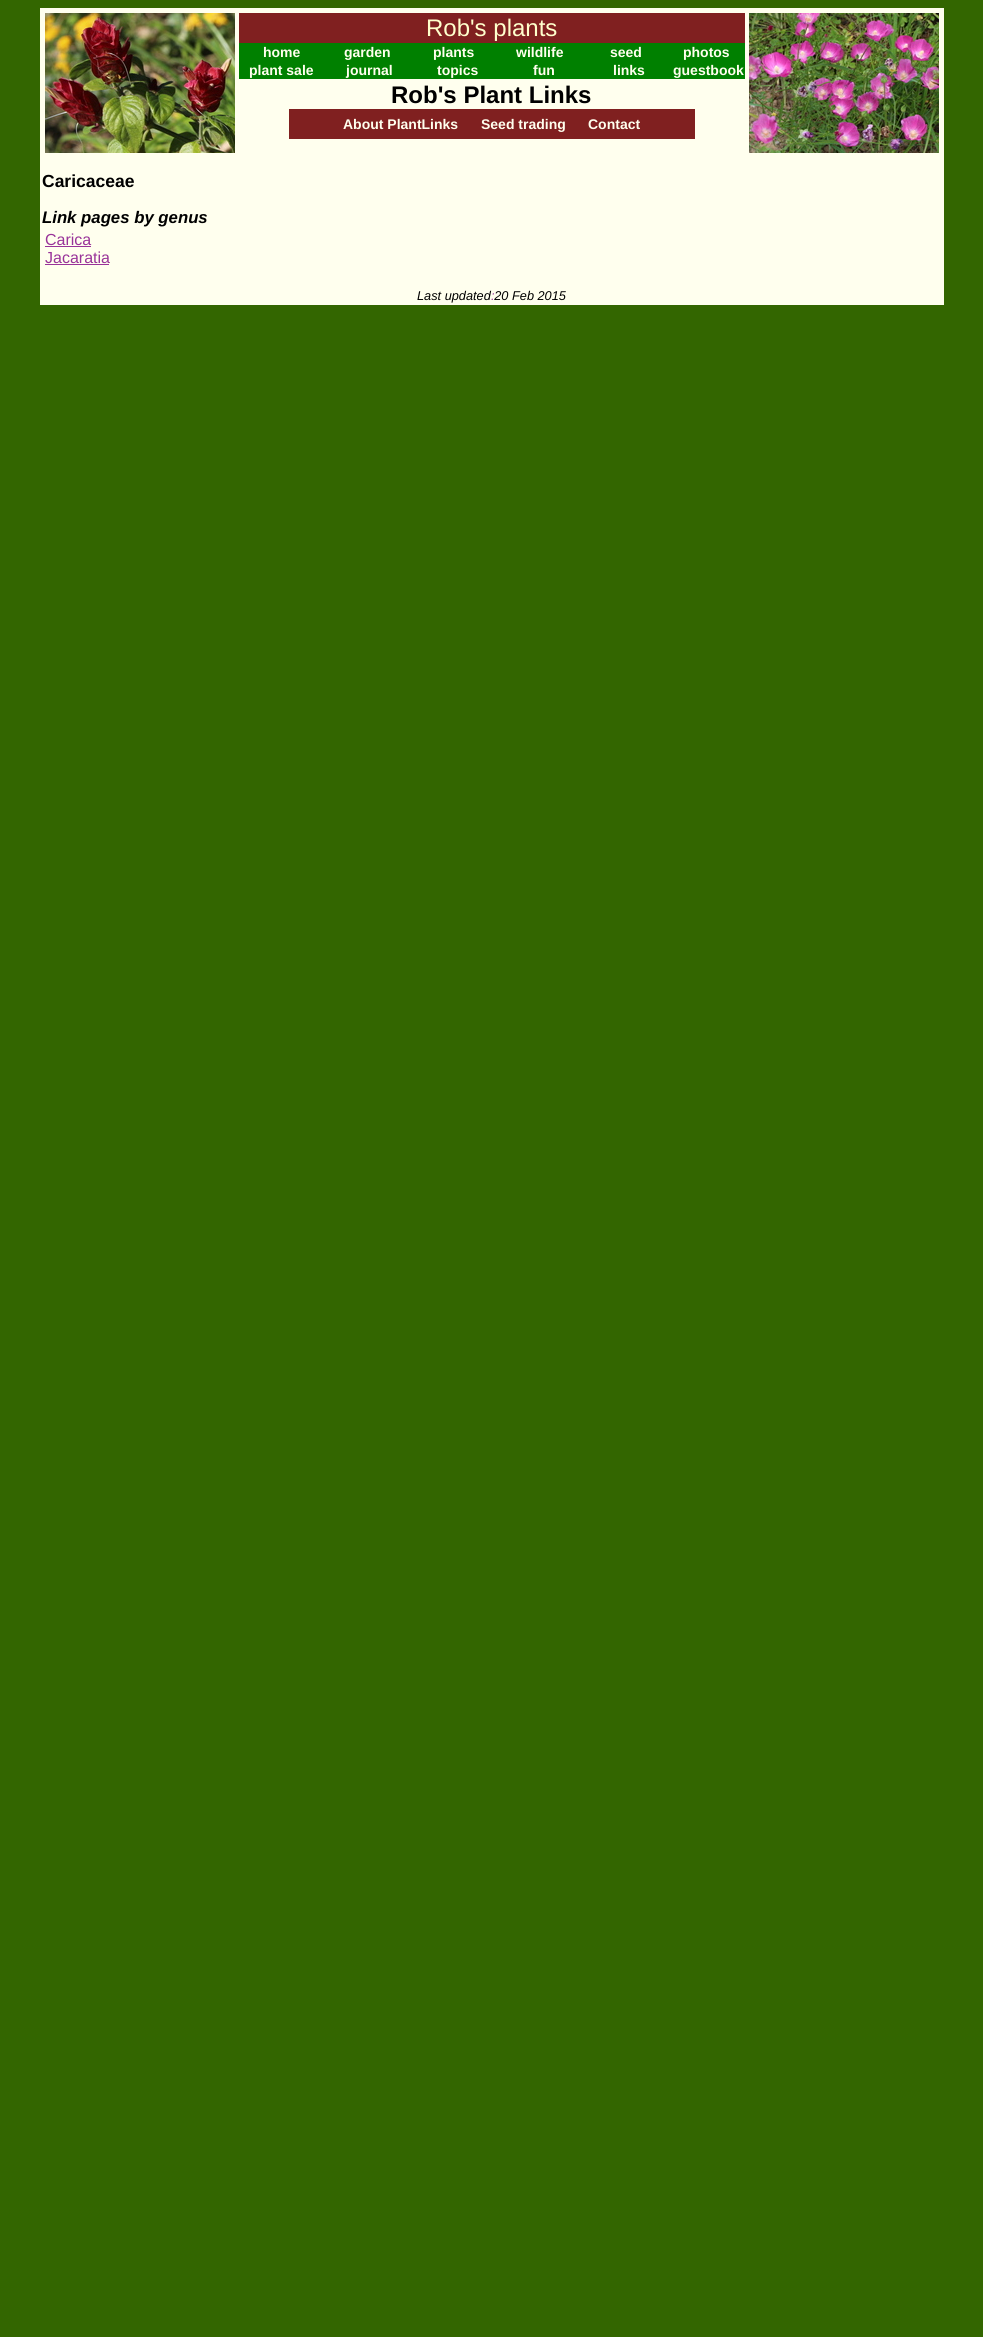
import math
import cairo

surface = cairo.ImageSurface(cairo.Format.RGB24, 983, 2337)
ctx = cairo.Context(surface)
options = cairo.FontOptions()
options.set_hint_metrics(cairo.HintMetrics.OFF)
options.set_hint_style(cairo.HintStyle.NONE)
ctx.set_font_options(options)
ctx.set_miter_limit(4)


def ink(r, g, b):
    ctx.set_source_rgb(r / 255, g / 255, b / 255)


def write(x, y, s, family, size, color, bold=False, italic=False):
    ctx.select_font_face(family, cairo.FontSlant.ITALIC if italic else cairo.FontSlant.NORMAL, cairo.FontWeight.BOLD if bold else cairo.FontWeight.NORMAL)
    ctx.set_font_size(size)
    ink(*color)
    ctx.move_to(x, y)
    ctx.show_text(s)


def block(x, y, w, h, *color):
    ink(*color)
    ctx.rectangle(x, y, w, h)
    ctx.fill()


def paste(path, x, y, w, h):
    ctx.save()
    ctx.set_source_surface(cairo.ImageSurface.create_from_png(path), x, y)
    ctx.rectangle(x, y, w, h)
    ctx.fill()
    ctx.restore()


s1 = dict(family="Liberation Sans", size=24, color=(255, 255, 204))
s2 = dict(family="Liberation Sans", size=14, color=(255, 255, 238), bold=True)
s3 = dict(family="Liberation Sans", size=24, color=(0, 0, 0), bold=True)
s4 = dict(family="Liberation Sans", size=17.5, color=(0, 0, 0), bold=True)
s5 = dict(family="Liberation Sans", size=16.75, color=(0, 0, 0), bold=True, italic=True)
s6 = dict(family="Liberation Sans", size=16, color=(153, 51, 153))
s7 = dict(family="Liberation Sans", size=12.75, color=(0, 0, 0), italic=True)
s8 = dict(family="Liberation Sans", size=12.75, color=(153, 51, 153), italic=True)

ink(51, 102, 0)
ctx.paint()
block(40, 8, 904, 297, 255, 255, 238)
paste("pic1.png", 45, 13, 190, 140)
block(239, 43, 506, 36, 0, 128, 0)
block(239, 13, 506, 30, 128, 32, 32)
write(426, 36, "Rob's plants", **s1)
write(263, 57, "home", **s2)
write(344, 57, "garden", **s2)
write(433, 57, "plants", **s2)
write(516, 57, "wildlife", **s2)
write(610, 57, "seed", **s2)
write(683, 57, "photos", **s2)
write(249, 75, "plant sale", **s2)
write(346, 75, "journal", **s2)
write(437, 75, "topics", **s2)
write(533, 75, "fun", **s2)
write(613, 75, "links", **s2)
write(673, 75, "guestbook", **s2)
write(391, 103, "Rob's Plant Links", **s3)
block(289, 109, 406, 30, 128, 32, 32)
write(343, 129, "About PlantLinks", **s2)
write(481, 129, "Seed trading", **s2)
write(588, 129, "Contact", **s2)
paste("pic2.png", 749, 13, 190, 140)
write(42, 187, "Caricaceae", **s4)
write(42, 223, "Link pages by genus", **s5)
write(45, 245, "Carica", **s6)
block(45, 246, 46, 1, 153, 51, 153)
write(45, 263, "Jacaratia", **s6)
block(45, 264, 64, 1, 153, 51, 153)
write(417, 300, "Last updated 20 Feb 2015", **s7)
write(491, 300, ":", **s8)
surface.write_to_png("screenshot.png")
